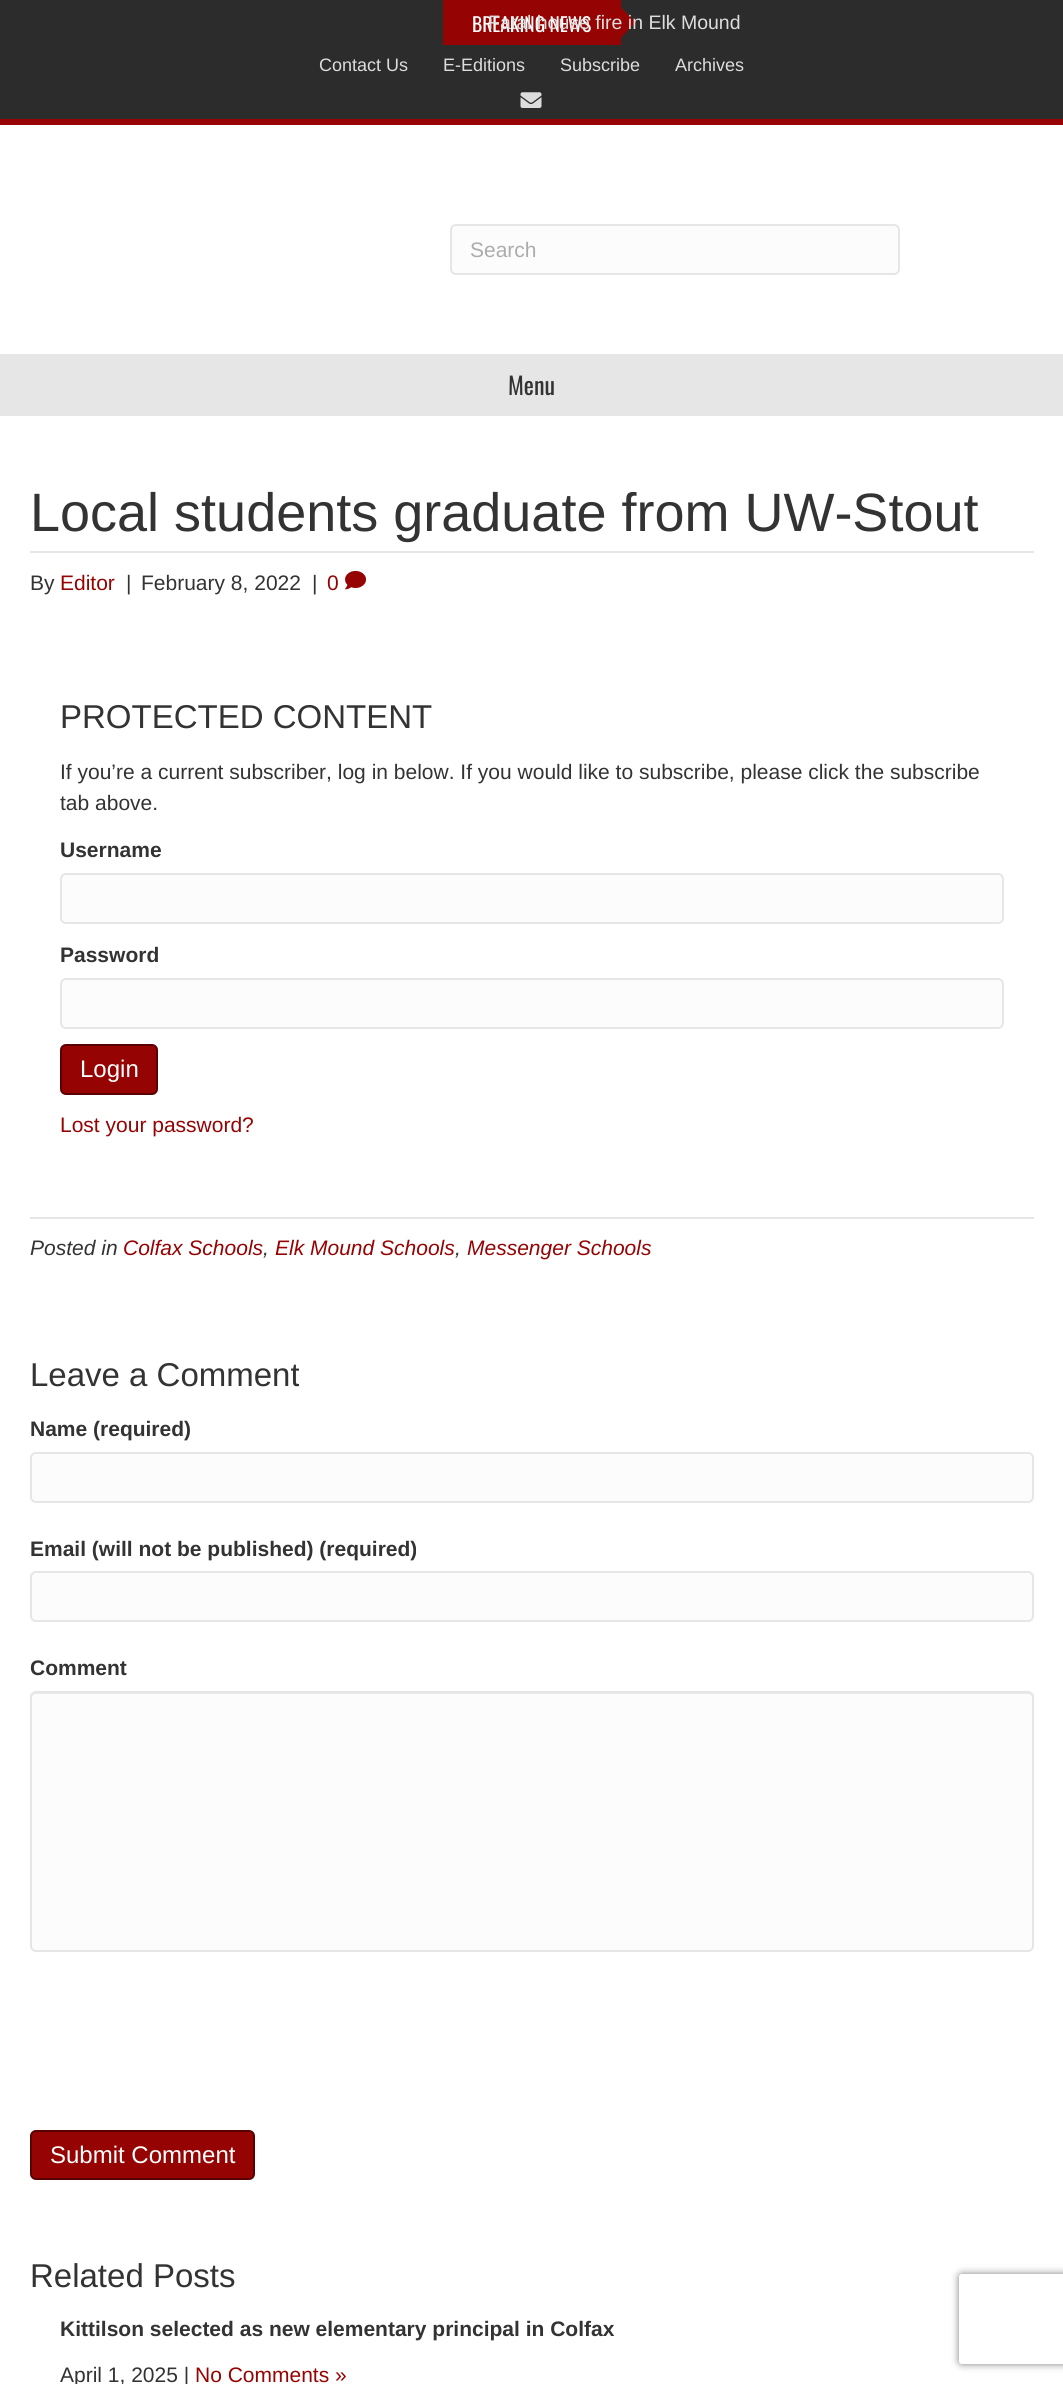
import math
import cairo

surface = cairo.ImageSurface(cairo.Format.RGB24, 1063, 2384)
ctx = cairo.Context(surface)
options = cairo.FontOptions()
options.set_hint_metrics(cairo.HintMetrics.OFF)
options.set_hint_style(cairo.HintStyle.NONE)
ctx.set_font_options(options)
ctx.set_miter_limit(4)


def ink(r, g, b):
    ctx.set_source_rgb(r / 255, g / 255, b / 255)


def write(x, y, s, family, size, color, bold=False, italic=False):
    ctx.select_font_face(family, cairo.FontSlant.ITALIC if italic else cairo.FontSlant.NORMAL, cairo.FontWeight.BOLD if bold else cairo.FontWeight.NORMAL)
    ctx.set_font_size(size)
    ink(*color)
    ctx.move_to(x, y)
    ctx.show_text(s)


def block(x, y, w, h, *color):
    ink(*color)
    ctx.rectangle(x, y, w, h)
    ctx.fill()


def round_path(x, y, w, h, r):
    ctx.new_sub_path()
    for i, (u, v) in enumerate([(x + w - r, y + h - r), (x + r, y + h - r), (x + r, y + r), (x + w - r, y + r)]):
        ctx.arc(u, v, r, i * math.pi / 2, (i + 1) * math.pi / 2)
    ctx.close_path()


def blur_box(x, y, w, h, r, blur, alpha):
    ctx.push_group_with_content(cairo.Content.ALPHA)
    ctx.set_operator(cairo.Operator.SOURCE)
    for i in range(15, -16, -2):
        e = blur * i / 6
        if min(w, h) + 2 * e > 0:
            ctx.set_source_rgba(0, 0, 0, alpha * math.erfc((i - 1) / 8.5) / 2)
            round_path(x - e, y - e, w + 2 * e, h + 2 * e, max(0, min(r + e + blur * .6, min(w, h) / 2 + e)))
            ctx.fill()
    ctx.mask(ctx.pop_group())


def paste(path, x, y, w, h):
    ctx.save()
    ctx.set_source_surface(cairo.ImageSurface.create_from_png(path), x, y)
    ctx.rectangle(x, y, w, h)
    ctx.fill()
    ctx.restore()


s1 = dict(family="Oswald", size=19.5, color=(255, 255, 255))
s2 = dict(family="Liberation Sans", size=19.5, color=(221, 221, 221))
s3 = dict(family="Liberation Sans", size=18, color=(221, 221, 221))
s4 = dict(family="Liberation Sans", size=21, color=(172, 172, 172))
s5 = dict(family="Oswald", size=24, color=(51, 51, 51))
s6 = dict(family="Liberation Sans", size=54, color=(51, 51, 51))
s7 = dict(family="Liberation Sans", size=21, color=(51, 51, 51))
s8 = dict(family="Liberation Sans", size=21, color=(150, 3, 3))
s9 = dict(family="Liberation Sans", size=33, color=(51, 51, 51))
s10 = dict(family="Liberation Sans", size=21, color=(51, 51, 51), bold=True)
s11 = dict(family="Liberation Sans", size=24, color=(255, 255, 255))
s12 = dict(family="Liberation Sans", size=21, color=(51, 51, 51), italic=True)
s13 = dict(family="Liberation Sans", size=21, color=(150, 3, 3), italic=True)

ink(44, 44, 44)
ctx.paint()
block(0, 119, 1063, 6, 150, 3, 3)
block(443, 0, 178, 45, 150, 3, 3)
write(472, 32, "BREAKING NEWS", **s1)
ink(150, 3, 3)
ctx.new_path()
ctx.move_to(621, 37.5)
ctx.line_to(621, 7.5)
ctx.line_to(636, 22.5)
ctx.close_path()
ctx.fill()
write(488, 29, "Fatal house fire in Elk Mound", **s2)
write(319, 71, "Contact Us", **s3)
write(443, 71, "E-Editions", **s3)
write(560, 71, "Subscribe", **s3)
write(675, 71, "Archives", **s3)
paste("pic1.png", 520, 92, 22, 16)
block(0, 125, 1063, 2259, 255, 255, 255)
ink(252, 252, 252)
round_path(451, 225, 448, 49, 5)
ctx.fill_preserve()
ink(230, 230, 230)
ctx.stroke()
write(470, 257, "Search", **s4)
block(0, 354, 1063, 62, 230, 230, 230)
write(508, 395, "Menu", **s5)
block(30, 551, 1004, 2, 230, 230, 230)
write(30, 531, "Local students graduate from UW-Stout", **s6)
write(30, 590, "By", **s7)
write(60, 590, "Editor", **s8)
write(126, 590, "|", **s7)
write(141, 590, "February 8, 2022", **s7)
write(312, 590, "|", **s7)
write(327, 590, "0", **s8)
paste("pic2.png", 345, 570, 21, 20)
write(60, 728, "PROTECTED CONTENT", **s9)
write(60, 779, "If you’re a current subscriber, log in below. If you would like to subscribe, please click the subscribe", **s7)
write(60, 810, "tab above.", **s7)
write(60, 857, "Username", **s10)
ink(252, 252, 252)
round_path(61, 874, 942, 49, 5)
ctx.fill_preserve()
ink(230, 230, 230)
ctx.stroke()
write(60, 962, "Password", **s10)
ink(252, 252, 252)
round_path(61, 979, 942, 49, 5)
ctx.fill_preserve()
ink(230, 230, 230)
ctx.stroke()
ink(150, 3, 3)
round_path(61, 1045, 96, 49, 5)
ctx.fill_preserve()
ink(90, 2, 2)
ctx.stroke()
write(80, 1077, "Login", **s11)
ctx.save()
ctx.set_fill_rule(cairo.FillRule.EVEN_ODD)
ctx.new_path()
ctx.move_to(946, 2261)
ctx.line_to(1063, 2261)
ctx.line_to(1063, 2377)
ctx.line_to(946, 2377)
ctx.close_path()
ctx.move_to(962, 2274)
ctx.line_to(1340, 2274)
ctx.curve_to(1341.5, 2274, 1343, 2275.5, 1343, 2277)
ctx.line_to(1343, 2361)
ctx.curve_to(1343, 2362.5, 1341.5, 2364, 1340, 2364)
ctx.line_to(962, 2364)
ctx.curve_to(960.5, 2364, 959, 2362.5, 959, 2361)
ctx.line_to(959, 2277)
ctx.curve_to(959, 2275.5, 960.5, 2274, 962, 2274)
ctx.close_path()
ctx.clip()
ink(128, 128, 128)
blur_box(959, 2274, 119, 90, 3, 4, 1)
ctx.restore()
write(60, 1132, "Lost your password?", **s8)
block(30, 1217, 1004, 2, 230, 230, 230)
write(30, 1255, "Posted in", **s12)
write(123, 1255, "Colfax Schools", **s13)
write(263, 1255, ",", **s12)
write(275, 1255, "Elk Mound Schools", **s13)
write(455, 1255, ",", **s12)
write(467, 1255, "Messenger Schools", **s13)
write(30, 1386, "Leave a Comment", **s9)
write(30, 1436, "Name (required)", **s10)
ink(252, 252, 252)
round_path(31, 1453, 1002, 49, 5)
ctx.fill_preserve()
ink(230, 230, 230)
ctx.stroke()
write(30, 1556, "Email (will not be published) (required)", **s10)
ink(252, 252, 252)
round_path(31, 1572, 1002, 49, 5)
ctx.fill_preserve()
ink(230, 230, 230)
ctx.stroke()
write(30, 1675, "Comment", **s10)
ink(252, 252, 252)
round_path(30, 1691, 1004, 261, 6)
ctx.fill()
ink(233, 233, 233)
ctx.new_path()
ctx.move_to(36, 1694)
ctx.line_to(1028, 1694)
ctx.curve_to(1030, 1694, 1032, 1696, 1032, 1698)
ctx.curve_to(1032, 1695, 1030, 1692, 1027, 1692)
ctx.line_to(37, 1692)
ctx.curve_to(34, 1692, 32, 1695, 32, 1698)
ctx.curve_to(32, 1696, 34, 1694, 36, 1694)
ctx.close_path()
ctx.fill()
round_path(31, 1692, 1002, 259, 5)
ink(230, 230, 230)
ctx.stroke()
ink(150, 3, 3)
round_path(31, 2131, 223, 48, 5)
ctx.fill_preserve()
ink(90, 2, 2)
ctx.stroke()
write(50, 2163, "Submit Comment", **s11)
write(30, 2287, "Related Posts", **s9)
write(60, 2336, "Kittilson selected as new elementary principal in Colfax", **s10)
write(60, 2382, "April 1, 2025 |", **s7)
write(195, 2382, "No Comments »", **s8)
surface.write_to_png("screenshot.png")
